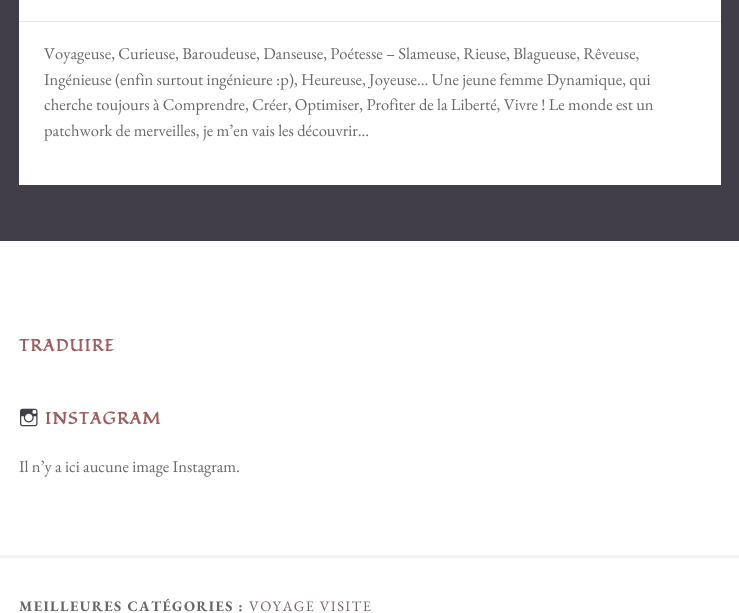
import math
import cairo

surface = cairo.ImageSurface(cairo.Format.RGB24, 739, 613)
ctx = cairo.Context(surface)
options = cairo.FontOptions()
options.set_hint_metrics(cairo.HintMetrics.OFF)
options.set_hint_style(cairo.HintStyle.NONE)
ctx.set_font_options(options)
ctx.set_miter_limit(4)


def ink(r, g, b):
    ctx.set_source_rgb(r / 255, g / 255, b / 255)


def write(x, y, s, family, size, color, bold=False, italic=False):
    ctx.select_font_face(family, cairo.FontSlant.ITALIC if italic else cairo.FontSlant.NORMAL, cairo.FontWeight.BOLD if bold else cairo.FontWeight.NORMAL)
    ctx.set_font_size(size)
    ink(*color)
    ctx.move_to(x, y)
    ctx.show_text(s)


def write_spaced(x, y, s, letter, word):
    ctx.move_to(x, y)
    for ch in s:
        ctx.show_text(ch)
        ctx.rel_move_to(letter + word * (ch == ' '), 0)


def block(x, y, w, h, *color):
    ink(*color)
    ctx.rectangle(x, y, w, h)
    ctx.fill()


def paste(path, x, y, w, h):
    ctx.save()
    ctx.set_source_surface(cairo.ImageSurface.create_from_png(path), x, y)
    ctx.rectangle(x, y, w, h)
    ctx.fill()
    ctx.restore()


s1 = dict(family="EB Garamond", size=16.5, color=(102, 102, 102))

ink(65, 62, 74)
ctx.paint()
block(19, 0, 702, 185, 255, 255, 255)
block(19, 21, 702, 1, 230, 230, 230)
write(44, 59, "Voyageuse, Curieuse, Baroudeuse, Danseuse, Poétesse – Slameuse, Rieuse, Blagueuse, Rêveuse,", **s1)
write(44, 85, "Ingénieuse (enfin surtout ingénieure :p), Heureuse, Joyeuse… Une jeune femme Dynamique, qui", **s1)
write(44, 110, "cherche toujours à Comprendre, Créer, Optimiser, Profiter de la Liberté, Vivre ! Le monde est un", **s1)
write(44, 136, "patchwork de merveilles, je m’en vais les découvrir…", **s1)
block(0, 241, 739, 372, 255, 255, 255)
ctx.select_font_face("Fondamento", cairo.FontSlant.NORMAL, cairo.FontWeight.BOLD)
ink(156, 93, 95)
write_spaced(19, 351, "TRADUIRE", 1.25, 0)
paste("pic1.png", 20, 408, 18, 19)
write_spaced(45, 424, "INSTAGRAM", 1.25, 0)
write(19, 472, "Il n’y a ici aucune image Instagram.", **s1)
block(0, 555, 739, 3, 242, 242, 242)
ctx.select_font_face("EB Garamond", cairo.FontSlant.NORMAL, cairo.FontWeight.BOLD)
ctx.set_font_size(14.5)
ink(102, 102, 102)
write_spaced(19, 611, "MEILLEURES CATÉGORIES :", 1.4, 0)
ctx.select_font_face("EB Garamond")
ink(115, 98, 110)
write_spaced(249, 611, "VOYAGE VISITE", 1.4, 0)
surface.write_to_png("screenshot.png")
